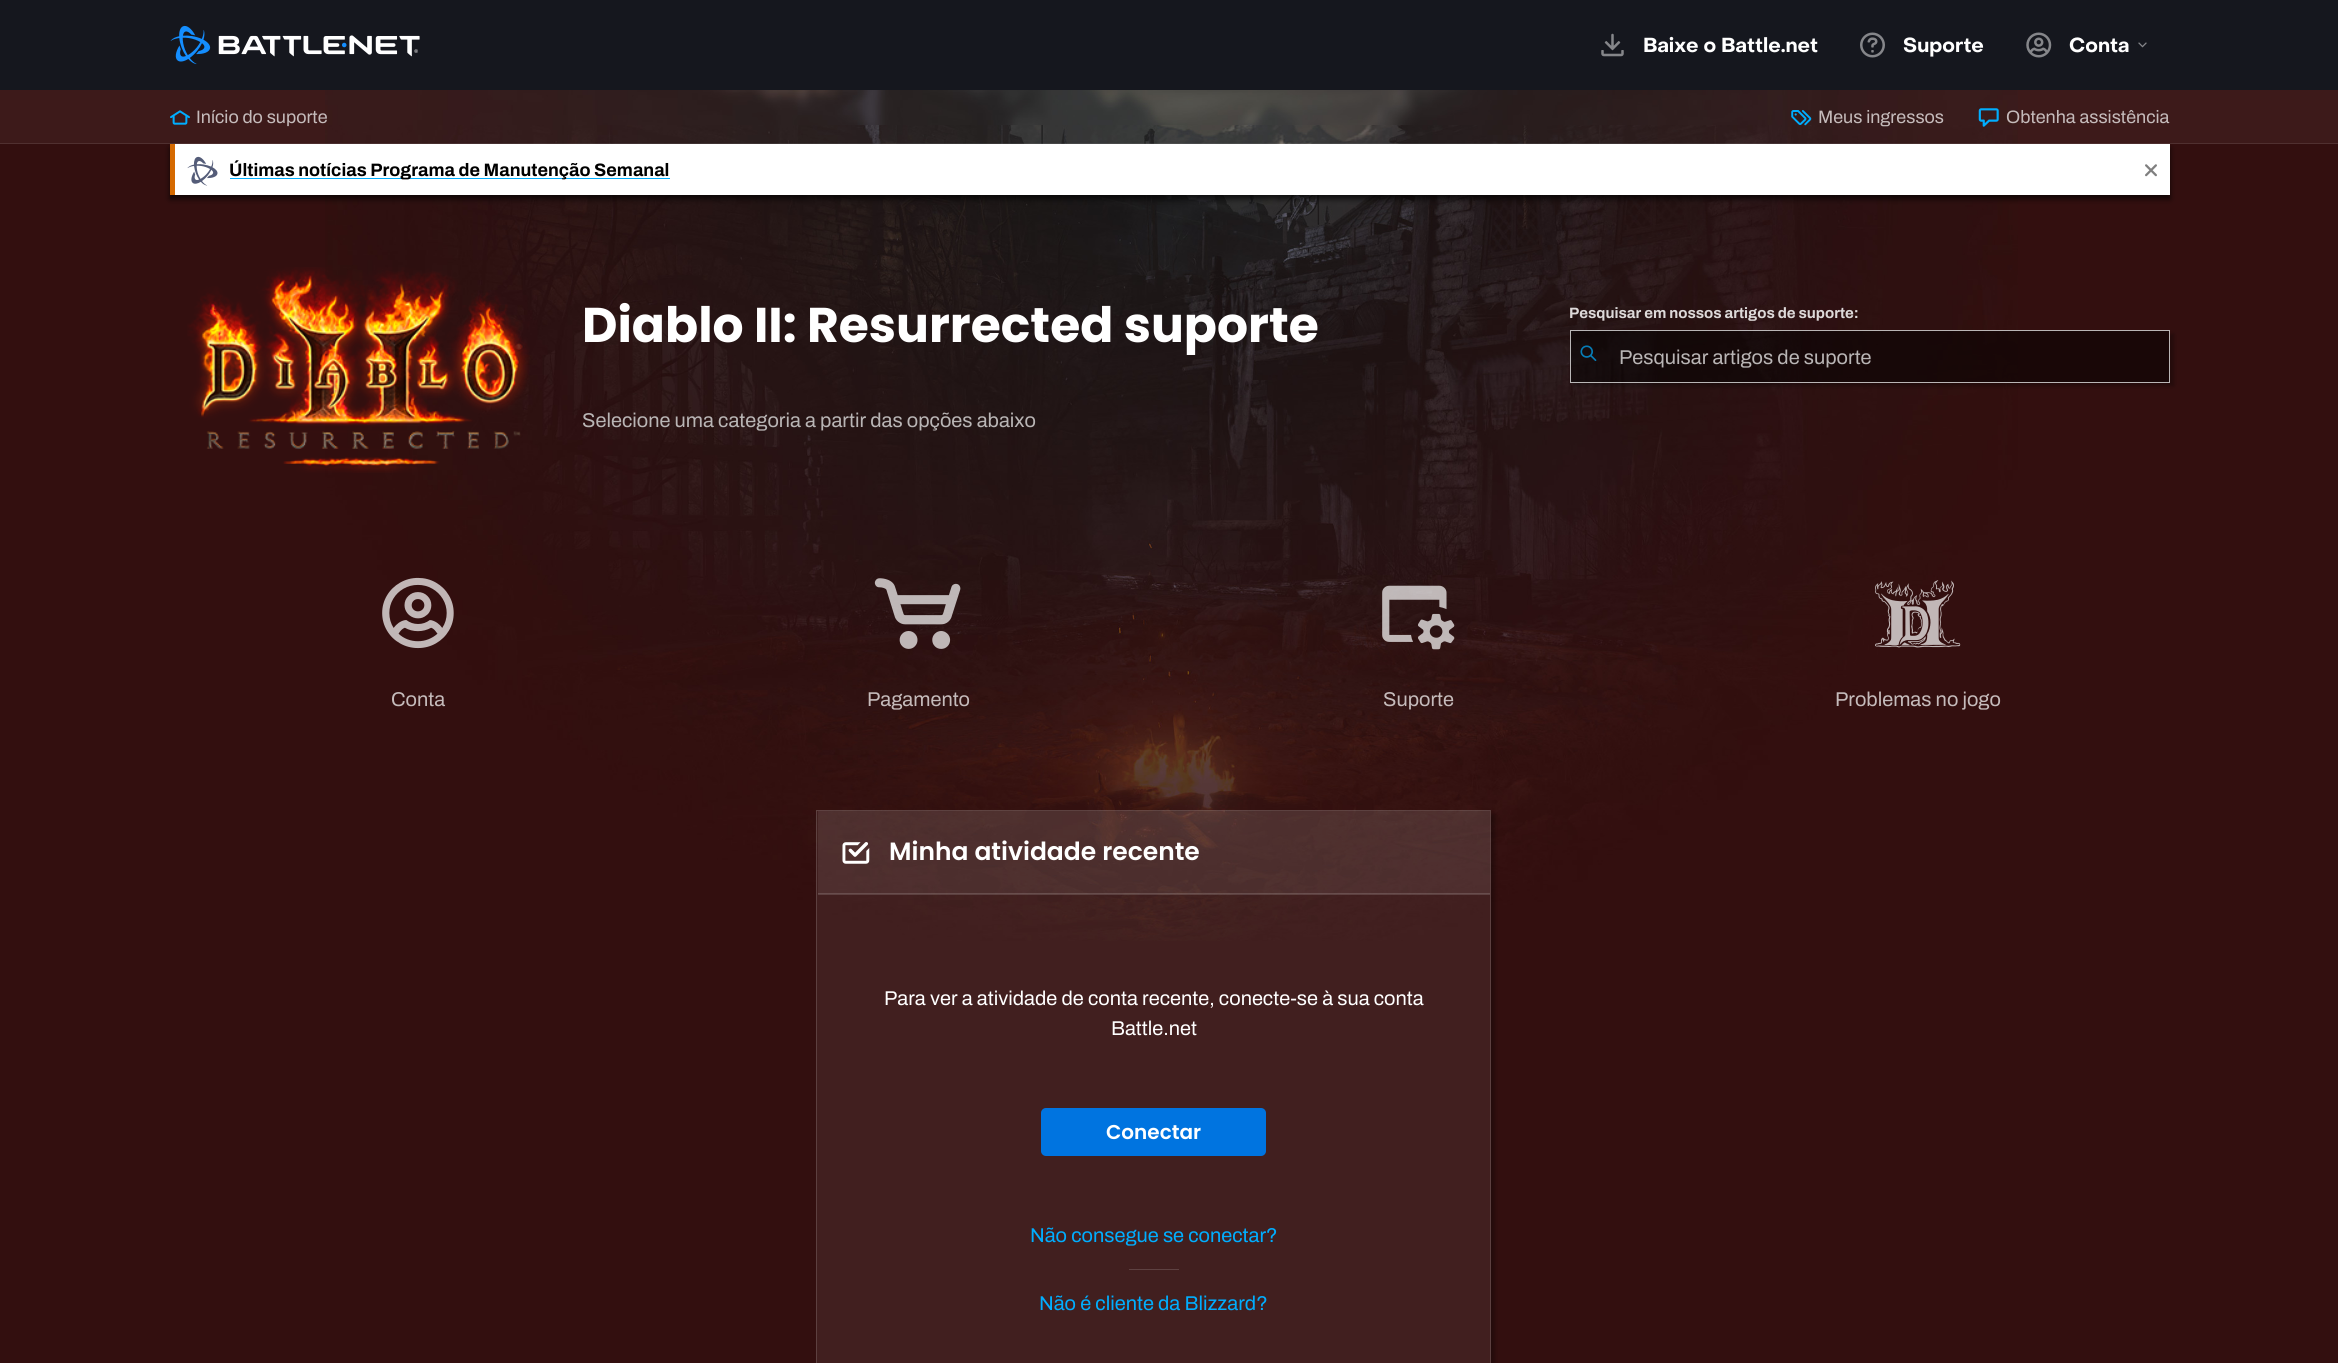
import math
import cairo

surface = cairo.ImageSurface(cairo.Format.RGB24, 2338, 1363)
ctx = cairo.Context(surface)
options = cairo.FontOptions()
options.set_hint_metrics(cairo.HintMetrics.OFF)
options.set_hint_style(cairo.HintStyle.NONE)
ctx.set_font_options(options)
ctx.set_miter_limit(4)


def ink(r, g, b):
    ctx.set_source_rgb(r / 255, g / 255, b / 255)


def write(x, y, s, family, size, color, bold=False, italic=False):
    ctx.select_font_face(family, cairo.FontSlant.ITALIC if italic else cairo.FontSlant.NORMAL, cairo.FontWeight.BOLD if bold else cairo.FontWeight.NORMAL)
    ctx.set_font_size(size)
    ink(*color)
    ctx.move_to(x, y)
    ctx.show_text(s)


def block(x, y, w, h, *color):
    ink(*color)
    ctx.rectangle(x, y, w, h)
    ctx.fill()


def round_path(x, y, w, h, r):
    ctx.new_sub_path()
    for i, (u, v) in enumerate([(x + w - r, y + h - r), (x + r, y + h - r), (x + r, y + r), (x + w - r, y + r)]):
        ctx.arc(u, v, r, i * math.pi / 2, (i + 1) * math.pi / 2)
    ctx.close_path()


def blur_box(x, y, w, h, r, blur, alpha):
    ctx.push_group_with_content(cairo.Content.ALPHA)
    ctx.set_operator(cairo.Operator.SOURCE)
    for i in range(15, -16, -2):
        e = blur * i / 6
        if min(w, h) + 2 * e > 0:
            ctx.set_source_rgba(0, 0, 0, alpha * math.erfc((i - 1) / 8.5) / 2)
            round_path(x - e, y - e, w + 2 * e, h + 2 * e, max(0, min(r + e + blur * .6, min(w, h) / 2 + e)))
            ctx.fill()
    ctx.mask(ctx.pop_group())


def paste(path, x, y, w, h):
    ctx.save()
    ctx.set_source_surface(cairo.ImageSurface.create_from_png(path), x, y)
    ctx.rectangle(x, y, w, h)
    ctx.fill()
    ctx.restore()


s1 = dict(family="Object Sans", size=20, color=(255, 255, 255), bold=True)
s2 = dict(family="Archivo", size=18, color=(197, 187, 187))
s3 = dict(family="Archivo", size=18, color=(0, 0, 0), bold=True)
s4 = dict(family="Poppins", size=48.8, color=(255, 255, 255), bold=True)
s5 = dict(family="Archivo", size=15, color=(221, 217, 217), bold=True)
s6 = dict(family="Archivo", size=20, color=(185, 181, 181))
s7 = dict(family="Archivo", size=20, color=(197, 187, 187))
s8 = dict(family="Poppins SemiBold", size=25, color=(255, 255, 255))
s9 = dict(family="Archivo", size=20, color=(255, 255, 255))
s10 = dict(family="Poppins SemiBold", size=20, color=(255, 255, 255))
s11 = dict(family="Archivo", size=20, color=(0, 174, 255))

ink(51, 15, 15)
ctx.paint()
block(0, 0, 2338, 90, 21, 23, 30)
paste("pic1.png", 170, 25, 250, 40)
paste("pic2.png", 1601, 33, 23, 24)
write(1643, 52, "Baixe o Battle.net", **s1)
paste("pic3.png", 1860, 32, 25, 26)
write(1903, 52, "Suporte", **s1)
paste("pic4.png", 2026, 32, 26, 26)
write(2069, 52, "Conta", **s1)
paste("pic5.png", 2138, 42, 9, 6)
paste("pic6.png", 325, 90, 1693, 851)
ctx.set_source_rgba(1, 1, 1, 0.05)
ctx.rectangle(0, 90, 2338, 54)
ctx.fill()
ctx.set_source_rgba(1, 1, 1, 0.1)
ctx.rectangle(0, 143, 2338, 1)
ctx.fill()
paste("pic7.png", 170, 110, 20, 15)
write(196, 123, "Início do suporte", **s2)
paste("pic8.png", 1791, 110, 21, 16)
write(1818, 123, "Meus ingressos", **s2)
paste("pic9.png", 1978, 108, 21, 19)
write(2006, 123, "Obtenha assistência", **s2)
ink(0, 0, 0)
blur_box(170, 148, 2000, 51, 0, 3, 0.7)
block(175, 144, 1995, 51, 255, 255, 255)
paste("pic10.png", 2145, 164, 12, 13)
block(170, 144, 5, 51, 213, 105, 0)
paste("pic11.png", 187, 156, 31, 30)
block(230, 178, 440, 1, 0, 174, 255)
write(229, 176, "Últimas notícias Programa de Manutenção Semanal", **s3)
paste("pic12.png", 187, 267, 343, 206)
write(582, 342, "Diablo II: Resurrected suporte", **s4)
write(1569, 318, "Pesquisar em nossos artigos de suporte:", **s5)
ctx.set_source_rgba(0, 0, 0, 0.5)
ctx.rectangle(1570, 330, 600, 53)
ctx.fill()
ctx.save()
ctx.set_fill_rule(cairo.FillRule.EVEN_ODD)
ctx.new_path()
ctx.move_to(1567, 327)
ctx.line_to(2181, 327)
ctx.line_to(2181, 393)
ctx.line_to(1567, 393)
ctx.close_path()
ctx.move_to(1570, 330)
ctx.line_to(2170, 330)
ctx.line_to(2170, 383)
ctx.line_to(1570, 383)
ctx.close_path()
ctx.clip()
ink(0, 0, 0)
blur_box(1574, 334, 600, 52, 0, 2, 0.3)
ctx.restore()
ctx.rectangle(1570.5, 330.5, 599, 52)
ctx.set_source_rgba(1, 1, 1, 0.7)
ctx.set_line_width(1)
ctx.stroke()
paste("pic13.png", 1580, 345, 17, 16)
write(1619, 364, "Pesquisar artigos de suporte", **s6)
write(582, 427, "Selecione uma categoria a partir das opções abaixo", **s6)
paste("pic14.png", 382, 577, 72, 72)
write(391, 706, "Conta", **s7)
paste("pic15.png", 874, 578, 87, 71)
write(867, 706, "Pagamento", **s7)
paste("pic16.png", 1382, 585, 73, 65)
write(1383, 706, "Suporte", **s7)
paste("pic17.png", 1875, 580, 86, 68)
write(1835, 706, "Problemas no jogo", **s7)
ctx.save()
ctx.rectangle(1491, 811, 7, 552)
ctx.clip()
ink(0, 0, 0)
blur_box(820, 814, 675, 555, 0, 2, 0.3)
ctx.restore()
ctx.set_source_rgba(1, 1, 1, 0.07)
ctx.rectangle(816, 810, 675, 553)
ctx.fill()
ctx.rectangle(816.5, 810.5, 674, 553)
ctx.set_source_rgba(1, 1, 1, 0.15)
ctx.stroke()
ctx.set_source_rgba(1, 1, 1, 0.07)
ctx.rectangle(818, 811, 672, 83)
ctx.fill()
ctx.set_source_rgba(1, 1, 1, 0.15)
ctx.rectangle(818, 893, 672, 1)
ctx.fill()
paste("pic18.png", 842, 842, 28, 22)
write(889, 860, "Minha atividade recente", **s8)
ctx.set_source_rgba(1, 1, 1, 0.15)
ctx.rectangle(818, 894, 672, 1)
ctx.fill()
write(884, 1005, "Para ver a atividade de conta recente, conecte-se à sua conta", **s9)
write(1111, 1035, "Battle.net", **s9)
ink(0, 116, 224)
round_path(1041, 1108, 225, 48, 5)
ctx.fill()
write(1106, 1139, "Conectar", **s10)
write(1030, 1242, "Não consegue se conectar?", **s11)
block(1129, 1269, 50, 1, 94, 65, 65)
write(1039, 1310, "Não é cliente da Blizzard?", **s11)
surface.write_to_png("screenshot.png")
